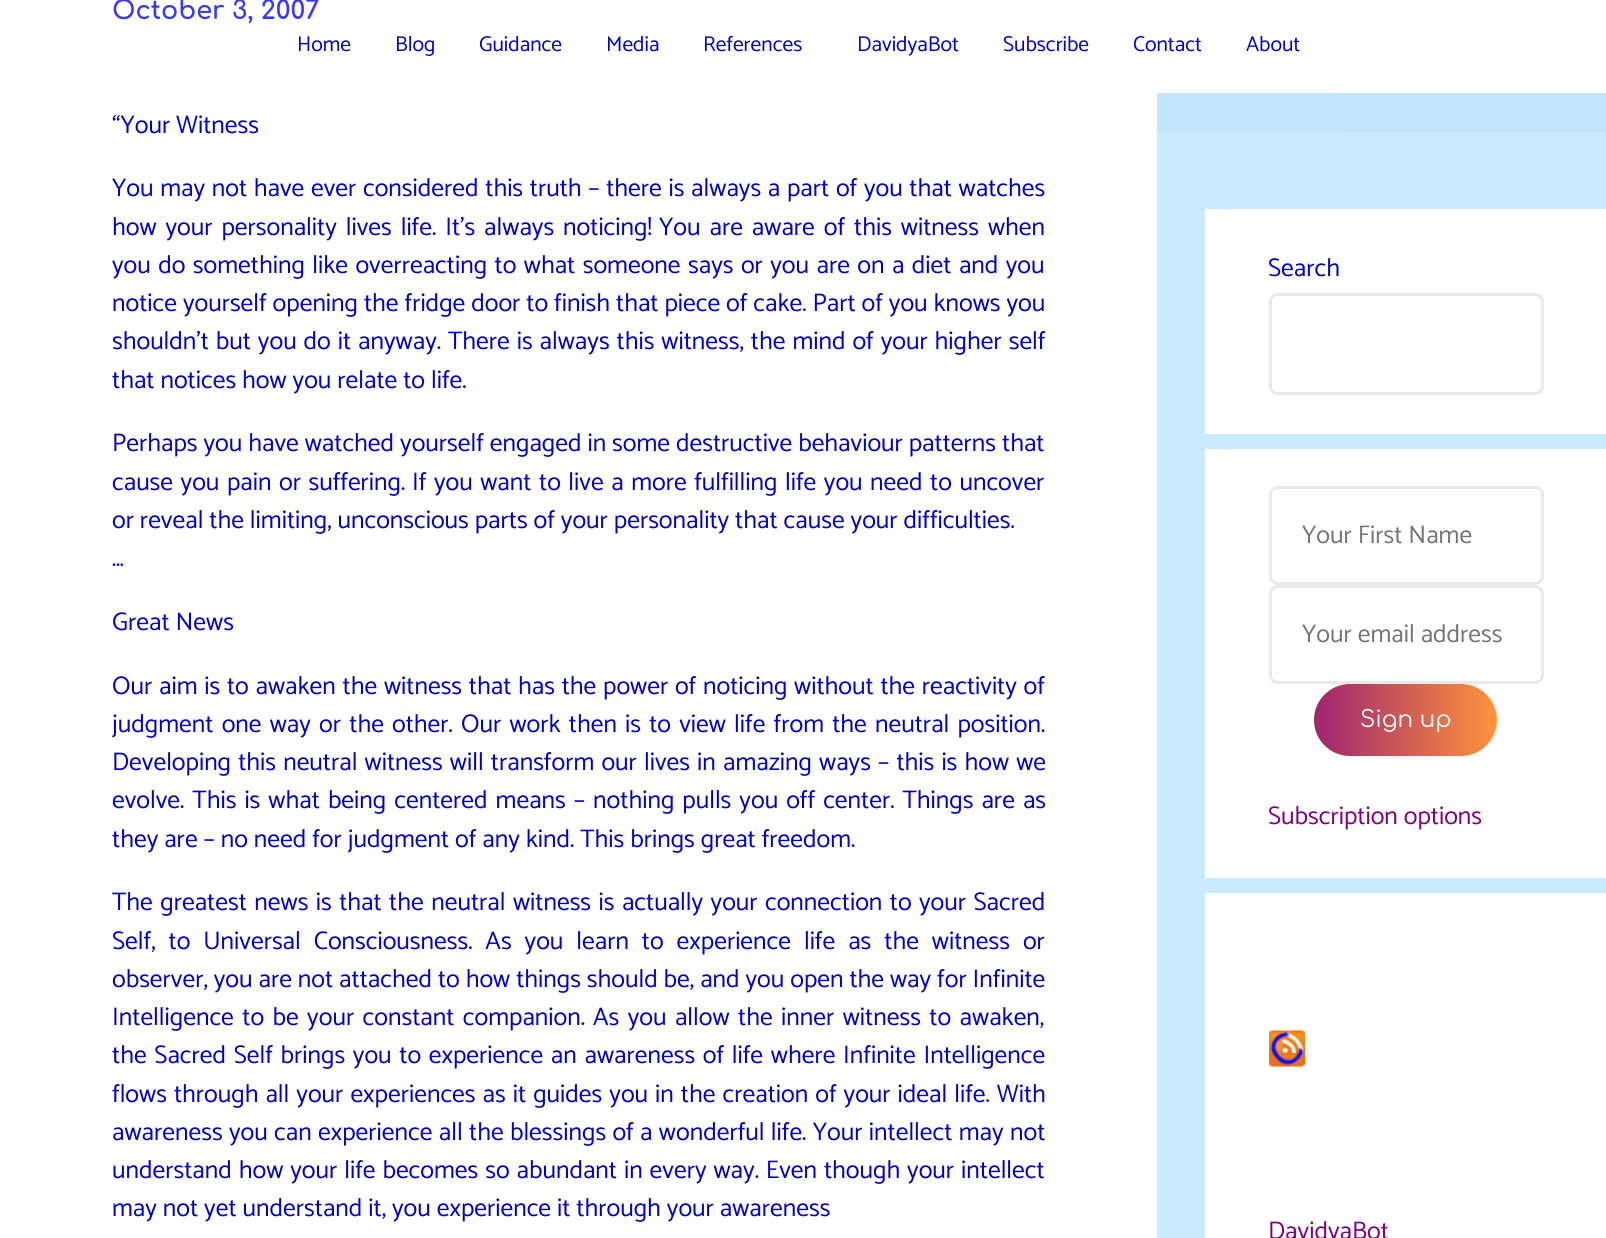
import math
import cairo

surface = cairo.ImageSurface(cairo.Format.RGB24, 1606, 1238)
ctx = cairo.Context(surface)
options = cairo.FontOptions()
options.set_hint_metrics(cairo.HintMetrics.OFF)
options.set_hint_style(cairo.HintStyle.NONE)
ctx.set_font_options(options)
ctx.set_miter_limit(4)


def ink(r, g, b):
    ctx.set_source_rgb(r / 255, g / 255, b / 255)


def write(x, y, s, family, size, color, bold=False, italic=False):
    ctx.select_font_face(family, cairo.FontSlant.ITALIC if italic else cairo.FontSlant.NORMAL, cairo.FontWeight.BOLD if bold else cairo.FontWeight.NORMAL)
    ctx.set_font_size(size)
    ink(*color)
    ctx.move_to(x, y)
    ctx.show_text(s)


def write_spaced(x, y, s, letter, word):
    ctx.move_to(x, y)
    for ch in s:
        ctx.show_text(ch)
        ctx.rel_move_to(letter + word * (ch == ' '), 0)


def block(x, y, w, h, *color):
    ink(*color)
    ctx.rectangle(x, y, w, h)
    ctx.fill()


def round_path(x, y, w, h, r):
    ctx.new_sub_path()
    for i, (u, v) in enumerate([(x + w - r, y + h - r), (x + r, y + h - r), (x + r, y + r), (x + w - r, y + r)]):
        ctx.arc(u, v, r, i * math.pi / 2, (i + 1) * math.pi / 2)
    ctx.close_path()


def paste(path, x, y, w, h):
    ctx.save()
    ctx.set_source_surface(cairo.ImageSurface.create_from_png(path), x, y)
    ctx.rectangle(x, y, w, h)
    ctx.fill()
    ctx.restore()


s1 = dict(family="Comfortaa", size=25.5, color=(55, 55, 255), bold=True)
s2 = dict(family="Catamaran", size=25.5, color=(0, 0, 204))
s3 = dict(family="Catamaran", size=25.5, color=(117, 117, 117))
s4 = dict(family="Comfortaa", size=23, color=(255, 255, 255))
s5 = dict(family="Catamaran", size=25.5, color=(128, 0, 128))
s6 = dict(family="Catamaran", size=21.5, color=(0, 0, 204))

ink(202, 234, 255)
ctx.paint()
block(0, 0, 1157, 1238, 255, 255, 255)
write(112, 19, "October 3, 2007", **s1)
write(112, 133, "“Your Witness", **s2)
write_spaced(112, 196, "You may not have ever considered this truth – there is always a part of you that watches", 0, 0.75)
write_spaced(112, 235, "how your personality lives life. It’s always noticing!", 0, 3)
write_spaced(659, 235, "You are aware of this witness when", 0, 3)
write_spaced(112, 273, "you do something like overreacting to what someone says or you are on a diet and you", 0, 1.5)
write(112, 311, "notice yourself opening the fridge door to finish that piece of cake. Part of you knows you", **s2)
write_spaced(112, 349, "shouldn’t but you do it anyway. There is always this witness, the mind of your higher self", 0, 1)
write(112, 388, "that notices how you relate to life.", **s2)
write(112, 451, "Perhaps you have watched yourself engaged in some destructive behaviour patterns that", **s2)
write_spaced(112, 490, "cause you pain or suffering.", 0, 1.6)
write_spaced(412, 490, "If you want to live a more fulfilling life you need to uncover", 0, 1.6)
write(112, 528, "or reveal the limiting, unconscious parts of your personality that cause your difficulties.", **s2)
write(112, 566, "…", **s2)
write(112, 630, "Great News", **s2)
write_spaced(112, 694, "Our aim is to awaken the witness that has the power of noticing without the reactivity of", 0, 0.8)
write_spaced(112, 732, "judgment one way or the other. Our work then is to view life from the neutral position.", 0, 2.25)
write_spaced(112, 770, "Developing this neutral witness will transform our lives in amazing ways – this is how we", 0, 1.2)
write_spaced(112, 808, "evolve. This is what being centered means – nothing pulls you off center. Things are as", 0, 2.1)
write(112, 847, "they are – no need for judgment of any kind. This brings great freedom.", **s2)
write_spaced(112, 910, "The greatest news is that the neutral witness is actually your connection to your Sacred", 0, 1.5)
write_spaced(112, 949, "Self, to Universal Consciousness. As you learn to experience life as the witness or", 0, 7)
write(112, 987, "observer, you are not attached to how things should be, and you open the way for Infinite", **s2)
write_spaced(112, 1025, "Intelligence to be your constant companion.", 0, 2.5)
write_spaced(593, 1025, "As you allow the inner witness to awaken,", 0, 2.5)
write_spaced(112, 1063, "the Sacred Self brings you to experience an awareness of life where Infinite Intelligence", 0, 1.75)
write_spaced(112, 1102, "flows through all your experiences as it guides you in the creation of your ideal life. With", 0, 1.1)
write_spaced(112, 1140, "awareness you can experience all the blessings of a wonderful life. Your intellect may not", 0, 0.4)
write_spaced(112, 1178, "understand how your life becomes so abundant in every way. Even though your intellect", 0, 1)
write(112, 1216, "may not yet understand it, you experience it through your awareness", **s2)
block(1205, 209, 401, 225, 255, 255, 255)
write(1268, 276, "Search", **s2)
round_path(1270.5, 294.5, 272, 99, 7.5)
ink(233, 233, 233)
ctx.set_line_width(3)
ctx.stroke()
block(1205, 449, 401, 429, 255, 255, 255)
round_path(1270.5, 487.5, 272, 96, 7.5)
ink(233, 233, 233)
ctx.stroke()
write(1302, 543, "Your First Name", **s3)
round_path(1270.5, 586.5, 272, 96, 7.5)
ink(233, 233, 233)
ctx.stroke()
write(1302, 642, "Your email address", **s3)
gradient = cairo.LinearGradient(765, 720, 1497, 720)
gradient.add_color_stop_rgba(0, 0.502, 0, 0.502, 1)
gradient.add_color_stop_rgba(0.33, 1, 0.58, 0.231, 1)
gradient.add_color_stop_rgba(0.67, 0.502, 0, 0.502, 1)
gradient.add_color_stop_rgba(1, 1, 0.58, 0.231, 1)
ctx.set_source(gradient)
round_path(1314, 684, 183, 72, 36)
ctx.fill()
write(1360, 727, "Sign up", **s4)
write(1268, 824, "Subscription options", **s5)
block(1205, 893, 401, 345, 255, 255, 255)
paste("pic1.png", 1269, 1030, 36, 37)
write(1268, 1239, "DavidyaBot", **s5)
block(1157, 0, 449, 93, 255, 255, 255)
write(297, 51, "Home", **s6)
write(395, 51, "Blog", **s6)
write(479, 51, "Guidance", **s6)
write(606, 51, "Media", **s6)
write(703, 51, "References", **s6)
write(857, 51, "DavidyaBot", **s6)
write(1003, 51, "Subscribe", **s6)
write(1133, 51, "Contact", **s6)
write(1246, 51, "About", **s6)
gradient = cairo.LinearGradient(36, 290, 1570, -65)
gradient.add_color_stop_rgba(0.25, 0.757, 0.914, 0.992, 1)
gradient.add_color_stop_rgba(0.9, 0.765, 0.894, 0.992, 1)
ctx.set_source(gradient)
ctx.rectangle(1157, 93, 449, 39)
ctx.fill()
surface.write_to_png("screenshot.png")
